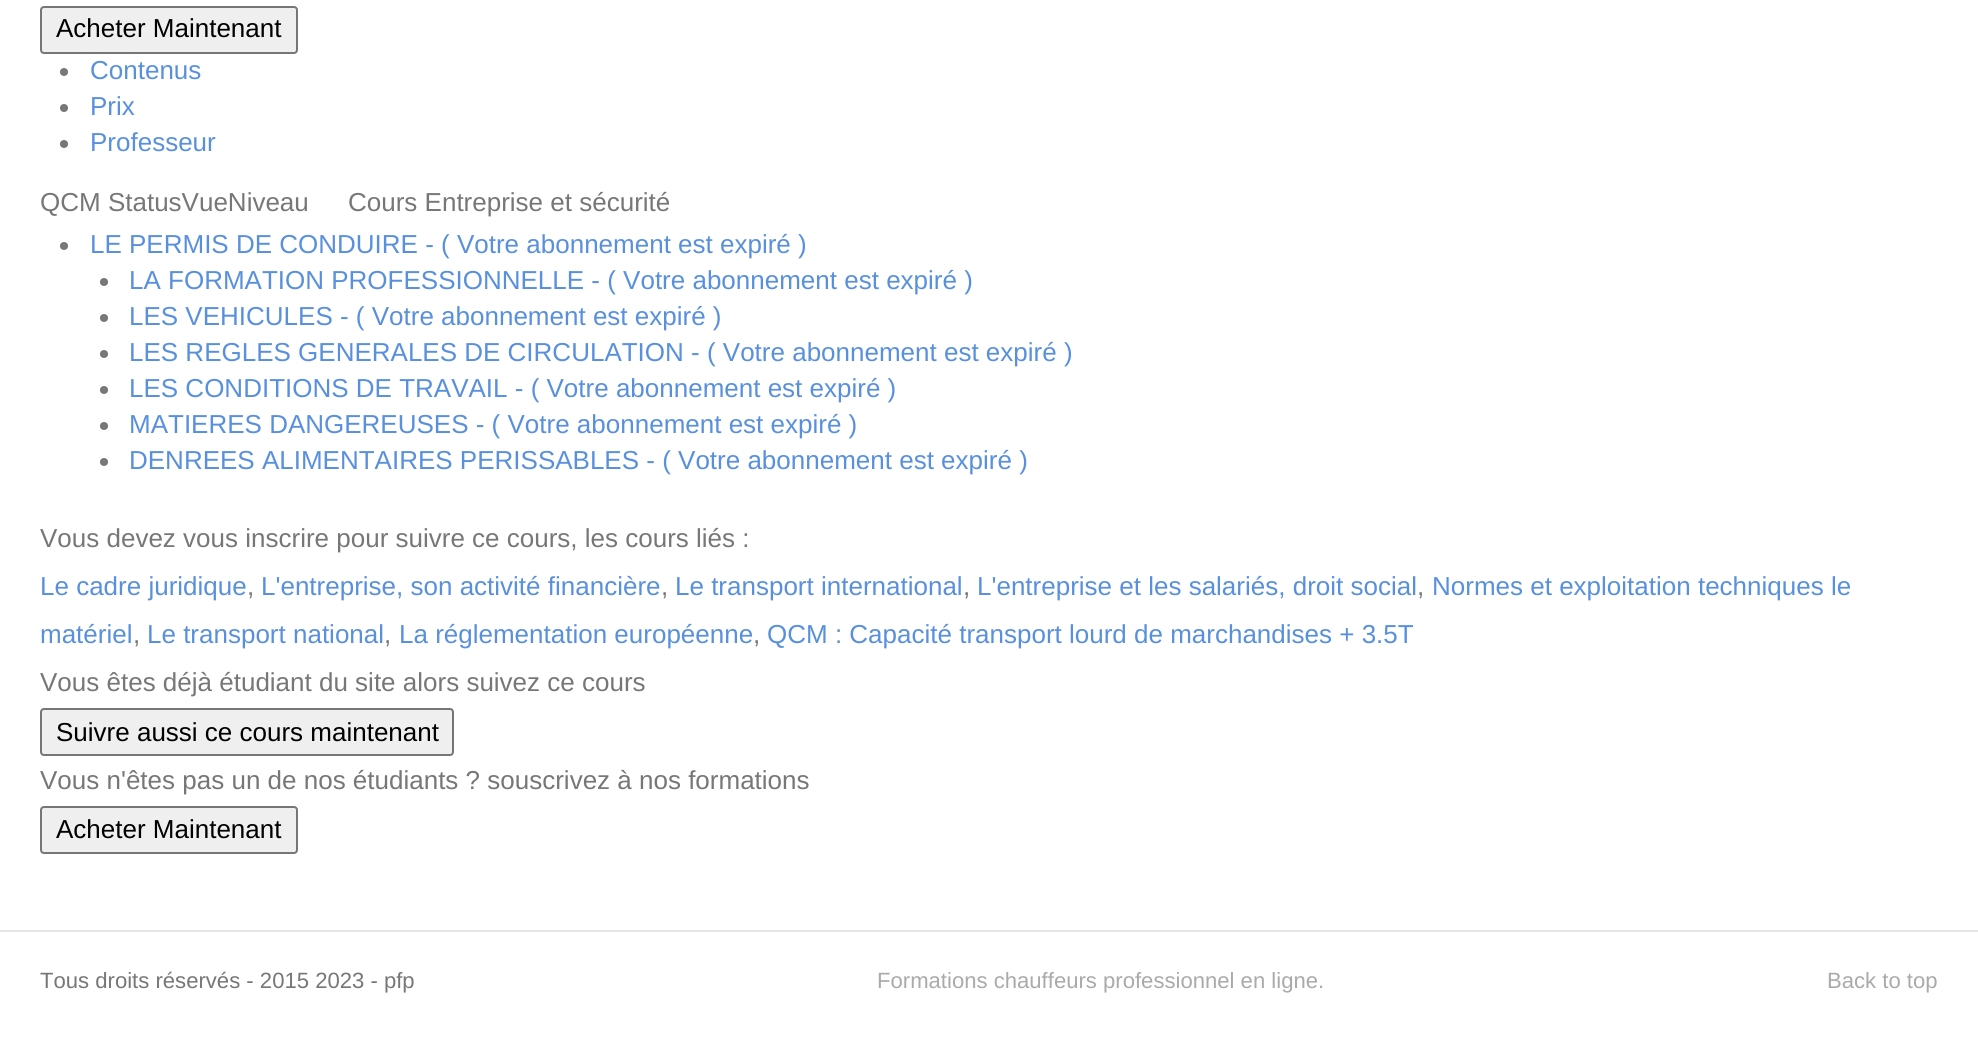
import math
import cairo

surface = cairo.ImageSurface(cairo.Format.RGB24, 1978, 1046)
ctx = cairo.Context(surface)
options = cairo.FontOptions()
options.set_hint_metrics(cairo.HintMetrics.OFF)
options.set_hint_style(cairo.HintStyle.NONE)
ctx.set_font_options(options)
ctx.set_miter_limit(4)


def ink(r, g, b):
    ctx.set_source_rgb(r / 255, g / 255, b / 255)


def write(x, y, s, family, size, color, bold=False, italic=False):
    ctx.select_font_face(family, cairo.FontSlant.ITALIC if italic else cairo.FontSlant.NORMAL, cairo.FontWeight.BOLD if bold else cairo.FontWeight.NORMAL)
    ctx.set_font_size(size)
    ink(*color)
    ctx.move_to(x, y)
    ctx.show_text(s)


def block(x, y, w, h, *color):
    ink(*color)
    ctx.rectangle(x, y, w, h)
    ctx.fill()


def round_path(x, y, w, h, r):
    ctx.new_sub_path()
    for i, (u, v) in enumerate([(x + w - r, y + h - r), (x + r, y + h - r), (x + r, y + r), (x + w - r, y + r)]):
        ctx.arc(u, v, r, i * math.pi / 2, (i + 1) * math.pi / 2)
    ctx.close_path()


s1 = dict(family="Liberation Sans", size=26, color=(0, 0, 0))
s2 = dict(family="Liberation Sans", size=26, color=(89, 144, 222))
s3 = dict(family="Liberation Sans", size=26, color=(119, 119, 119))
s4 = dict(family="Liberation Sans", size=22.1, color=(119, 119, 119))
s5 = dict(family="Liberation Sans", size=22.1, color=(170, 170, 170))

ink(255, 255, 255)
ctx.paint()
ink(239, 239, 239)
round_path(41, 7, 256, 46, 3)
ctx.fill_preserve()
ink(118, 118, 118)
ctx.stroke()
write(56, 37, "Acheter Maintenant", **s1)
ink(119, 119, 119)
ctx.new_path()
ctx.arc(64, 72, 4, 0, 2 * math.pi)
ctx.fill()
write(90, 79, "Contenus", **s2)
ink(119, 119, 119)
ctx.new_path()
ctx.arc(64, 108, 4, 0, 2 * math.pi)
ctx.fill()
write(90, 115, "Prix", **s2)
ink(119, 119, 119)
ctx.new_path()
ctx.arc(64, 144, 4, 0, 2 * math.pi)
ctx.fill()
write(90, 151, "Professeur", **s2)
write(348, 211, "Cours Entreprise et sécurité", **s3)
ctx.new_path()
ctx.arc(64, 246, 4, 0, 2 * math.pi)
ctx.fill()
write(90, 253, "LE PERMIS DE CONDUIRE - ( Votre abonnement est expiré )", **s2)
ink(119, 119, 119)
ctx.new_path()
ctx.arc(104, 282, 4, 0, 2 * math.pi)
ctx.fill()
write(129, 289, "LA FORMATION PROFESSIONNELLE - ( Votre abonnement est expiré )", **s2)
ink(119, 119, 119)
ctx.new_path()
ctx.arc(104, 318, 4, 0, 2 * math.pi)
ctx.fill()
write(129, 325, "LES VEHICULES - ( Votre abonnement est expiré )", **s2)
ink(119, 119, 119)
ctx.new_path()
ctx.arc(104, 354, 4, 0, 2 * math.pi)
ctx.fill()
write(129, 361, "LES REGLES GENERALES DE CIRCULATION - ( Votre abonnement est expiré )", **s2)
ink(119, 119, 119)
ctx.new_path()
ctx.arc(104, 390, 4, 0, 2 * math.pi)
ctx.fill()
write(129, 397, "LES CONDITIONS DE TRAVAIL - ( Votre abonnement est expiré )", **s2)
ink(119, 119, 119)
ctx.new_path()
ctx.arc(104, 426, 4, 0, 2 * math.pi)
ctx.fill()
write(129, 433, "MATIERES DANGEREUSES - ( Votre abonnement est expiré )", **s2)
ink(119, 119, 119)
ctx.new_path()
ctx.arc(104, 462, 4, 0, 2 * math.pi)
ctx.fill()
write(129, 469, "DENREES ALIMENTAIRES PERISSABLES - ( Votre abonnement est expiré )", **s2)
write(40, 211, "QCM StatusVueNiveau", **s3)
write(40, 547, "Vous devez vous inscrire pour suivre ce cours, les cours liés :", **s3)
write(40, 595, "Le cadre juridique", **s2)
write(247, 595, ",", **s3)
write(261, 595, "L'entreprise, son activité financière", **s2)
write(661, 595, ",", **s3)
write(675, 595, "Le transport international", **s2)
write(963, 595, ",", **s3)
write(977, 595, "L'entreprise et les salariés, droit social", **s2)
write(1417, 595, ",", **s3)
write(1432, 595, "Normes et exploitation techniques le", **s2)
write(40, 643, "matériel", **s2)
write(133, 643, ",", **s3)
write(147, 643, "Le transport national", **s2)
write(384, 643, ",", **s3)
write(399, 643, "La réglementation européenne", **s2)
write(753, 643, ",", **s3)
write(767, 643, "QCM : Capacité transport lourd de marchandises + 3.5T", **s2)
write(40, 691, "Vous êtes déjà étudiant du site alors suivez ce cours", **s3)
ink(239, 239, 239)
round_path(41, 709, 412, 46, 3)
ctx.fill_preserve()
ink(118, 118, 118)
ctx.stroke()
write(56, 741, "Suivre aussi ce cours maintenant", **s1)
write(40, 789, "Vous n'êtes pas un de nos étudiants ? souscrivez à nos formations", **s3)
ink(239, 239, 239)
round_path(41, 807, 256, 46, 3)
ctx.fill_preserve()
ink(118, 118, 118)
ctx.stroke()
write(56, 838, "Acheter Maintenant", **s1)
block(0, 930, 1978, 2, 229, 229, 229)
write(40, 988, "Tous droits réservés - 2015 2023 - pfp", **s4)
write(877, 988, "Formations chauffeurs professionnel en ligne.", **s5)
write(1827, 988, "Back to top", **s5)
surface.write_to_png("screenshot.png")
